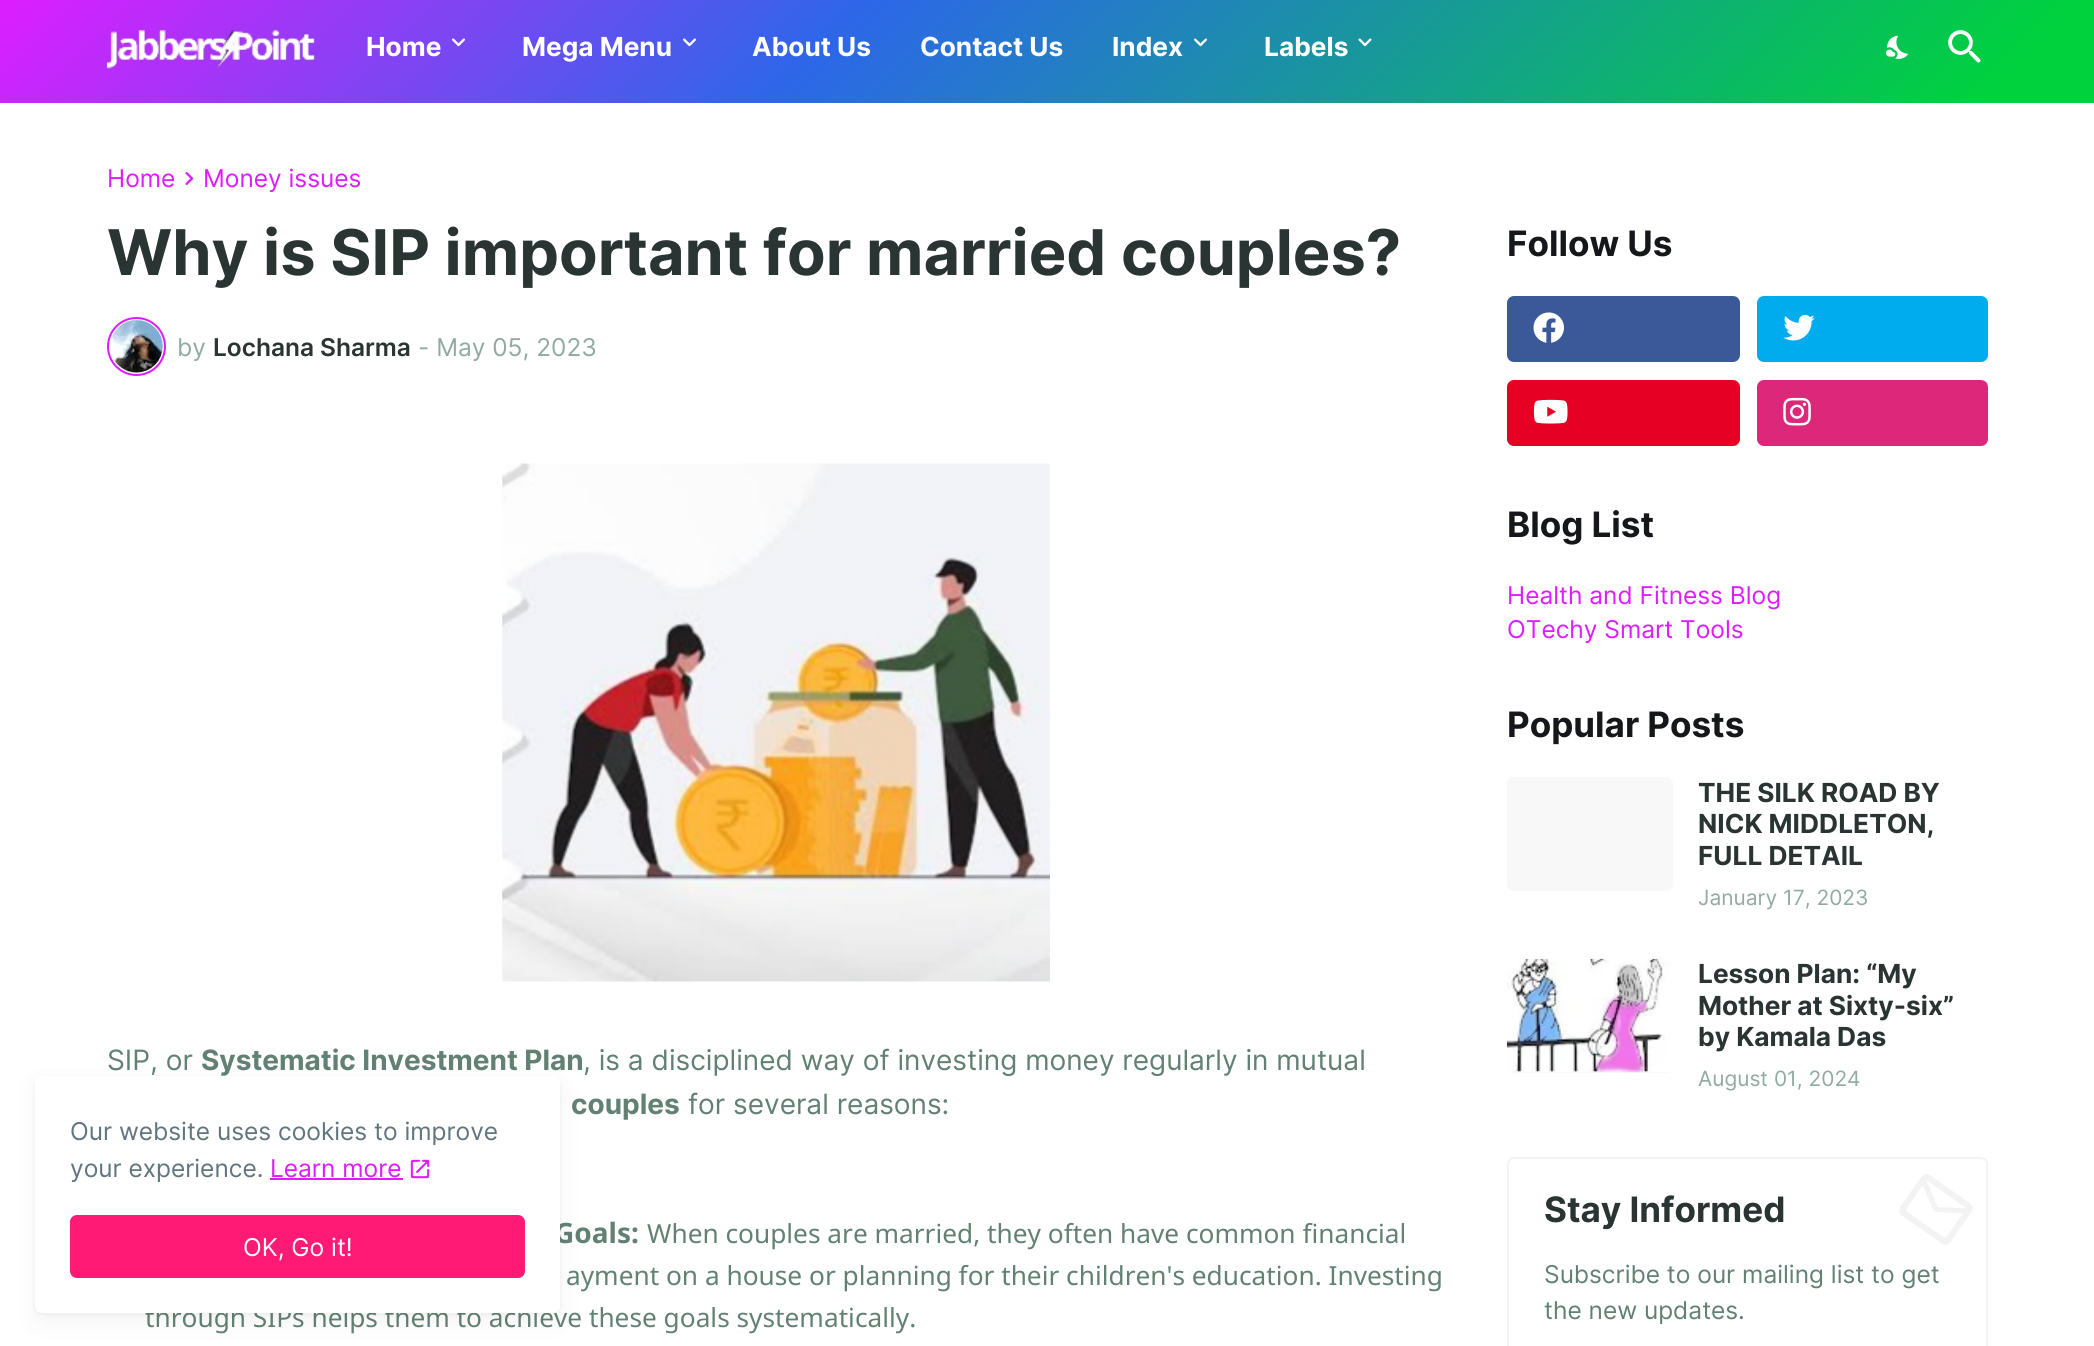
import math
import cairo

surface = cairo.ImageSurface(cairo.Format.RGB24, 2094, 1346)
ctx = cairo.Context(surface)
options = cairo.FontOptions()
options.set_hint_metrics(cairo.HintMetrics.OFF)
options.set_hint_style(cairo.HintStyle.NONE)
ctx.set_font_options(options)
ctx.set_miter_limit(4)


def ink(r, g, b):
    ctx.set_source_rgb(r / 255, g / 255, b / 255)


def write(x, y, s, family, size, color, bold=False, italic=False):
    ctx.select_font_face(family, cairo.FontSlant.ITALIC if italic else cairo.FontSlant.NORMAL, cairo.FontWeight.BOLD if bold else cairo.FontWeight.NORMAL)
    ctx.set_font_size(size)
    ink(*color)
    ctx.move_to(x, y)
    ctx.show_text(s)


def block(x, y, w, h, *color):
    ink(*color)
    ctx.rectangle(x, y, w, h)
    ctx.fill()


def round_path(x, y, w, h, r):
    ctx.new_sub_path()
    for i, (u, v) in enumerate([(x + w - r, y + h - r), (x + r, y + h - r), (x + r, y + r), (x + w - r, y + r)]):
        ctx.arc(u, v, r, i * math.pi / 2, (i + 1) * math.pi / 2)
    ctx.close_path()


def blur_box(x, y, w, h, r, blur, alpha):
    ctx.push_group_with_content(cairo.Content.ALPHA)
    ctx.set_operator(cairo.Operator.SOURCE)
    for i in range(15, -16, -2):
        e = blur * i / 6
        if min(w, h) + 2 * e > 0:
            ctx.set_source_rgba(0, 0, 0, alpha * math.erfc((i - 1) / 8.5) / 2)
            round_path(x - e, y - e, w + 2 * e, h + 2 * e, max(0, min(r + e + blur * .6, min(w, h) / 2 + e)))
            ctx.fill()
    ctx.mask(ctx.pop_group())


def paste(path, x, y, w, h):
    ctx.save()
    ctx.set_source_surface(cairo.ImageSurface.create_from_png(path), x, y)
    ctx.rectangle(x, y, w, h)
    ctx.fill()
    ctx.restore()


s1 = dict(family="Inter", size=26.25, color=(255, 255, 255), bold=True)
s2 = dict(family="Inter", size=24.5, color=(222, 29, 255))
s3 = dict(family="Inter", size=63, color=(42, 52, 50), bold=True)
s4 = dict(family="Inter", size=24.5, color=(145, 171, 160))
s5 = dict(family="Inter SemiBold", size=24.5, color=(42, 52, 50))
s6 = dict(family="Inter", size=28, color=(98, 129, 115))
s7 = dict(family="Inter", size=28, color=(98, 129, 115), bold=True)
s8 = dict(family="Noto Sans", size=28, color=(98, 129, 115), bold=True)
s9 = dict(family="Noto Sans", size=26.25, color=(98, 129, 115))
s10 = dict(family="Inter", size=35, color=(21, 23, 26), bold=True)
s11 = dict(family="Inter", size=26.25, color=(42, 52, 50), bold=True)
s12 = dict(family="Inter", size=21, color=(145, 171, 160))
s13 = dict(family="Inter", size=35, color=(42, 52, 50), bold=True)
s14 = dict(family="Inter", size=24.5, color=(98, 129, 115))
s15 = dict(family="Inter", size=24.5, color=(96, 117, 126))
s16 = dict(family="Inter", size=24.5, color=(255, 255, 255))

ink(255, 255, 255)
ctx.paint()
gradient = cairo.LinearGradient(496, -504, 1599, 599)
gradient.add_color_stop_rgba(0, 0.871, 0.114, 1, 1)
gradient.add_color_stop_rgba(0.4, 0.176, 0.404, 0.91, 1)
gradient.add_color_stop_rgba(0.95, 0, 0.824, 0.239, 1)
ctx.set_source(gradient)
ctx.rectangle(0, 0, 2094, 103)
ctx.fill()
paste("pic1.png", 106, 30, 210, 39)
write(366, 56, "Home", **s1)
paste("pic2.png", 452, 38, 13, 9)
write(522, 56, "Mega Menu", **s1)
paste("pic3.png", 683, 38, 13, 9)
write(752, 56, "About Us", **s1)
write(920, 56, "Contact Us", **s1)
write(1112, 56, "Index", **s1)
paste("pic4.png", 1194, 38, 13, 9)
write(1264, 56, "Labels", **s1)
paste("pic5.png", 1358, 38, 14, 9)
paste("pic6.png", 1885, 35, 23, 24)
paste("pic7.png", 1948, 30, 33, 33)
write(107, 187, "Home", **s2)
paste("pic8.png", 185, 172, 9, 13)
write(203, 187, "Money issues", **s2)
write(107, 275, "Why is SIP important for married couples?", **s3)
ink(248, 248, 248)
ctx.new_path()
ctx.arc(136.5, 346.5, 28.5, 0, 2 * math.pi)
ctx.fill_preserve()
ink(222, 29, 255)
ctx.stroke()
paste("pic9.png", 110, 320, 53, 53)
write(177, 356, "by", **s4)
write(213, 356, "Lochana Sharma", **s5)
write(418, 356, "- May 05, 2023", **s4)
paste("pic10.png", 502, 463, 548, 519)
write(107, 1070, "SIP, or", **s6)
write(201, 1070, "Systematic Investment Plan", **s7)
write(583, 1070, ", is a disciplined way of investing money regularly in mutual", **s6)
write(571, 1114, "couples", **s7)
write(688, 1114, "for several reasons:", **s6)
write(554, 1243, "Goals:", **s8)
write(647, 1243, "When couples are married, they often have common financial", **s9)
write(566, 1285, "ayment on a house or planning for their children's education. Investing", **s9)
write(145, 1327, "through SIPs helps them to achieve these goals systematically.", **s9)
write(1507, 256, "Follow Us", **s10)
ink(59, 89, 153)
round_path(1507, 296, 233, 66, 7)
ctx.fill()
paste("pic11.png", 1533, 312, 31, 31)
ink(0, 172, 238)
round_path(1757, 296, 231, 66, 7)
ctx.fill()
paste("pic12.png", 1783, 314, 32, 27)
ink(230, 0, 35)
round_path(1507, 380, 233, 66, 7)
ctx.fill()
paste("pic13.png", 1533, 399, 35, 25)
ink(221, 39, 123)
round_path(1757, 380, 231, 66, 7)
ctx.fill()
paste("pic14.png", 1783, 397, 28, 29)
write(1507, 537, "Blog List", **s10)
write(1507, 604, "Health and Fitness Blog", **s2)
write(1507, 638, "OTechy Smart Tools", **s2)
write(1507, 737, "Popular Posts", **s10)
ink(248, 248, 248)
round_path(1507, 777, 166, 114, 7)
ctx.fill()
write(1698, 802, "THE SILK ROAD BY", **s11)
write(1698, 833, "NICK MIDDLETON,", **s11)
write(1698, 865, "FULL DETAIL", **s11)
write(1698, 905, "January 17, 2023", **s12)
ink(248, 248, 248)
round_path(1507, 959, 166, 114, 7)
ctx.fill()
paste("pic15.png", 1506, 958, 167, 115)
write(1698, 983, "Lesson Plan: “My", **s11)
write(1698, 1015, "Mother at Sixty-six”", **s11)
write(1698, 1046, "by Kamala Das", **s11)
write(1698, 1086, "August 01, 2024", **s12)
round_path(1508, 1158, 479, 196, 6)
ink(243, 243, 243)
ctx.stroke()
paste("pic16.png", 1899, 1174, 74, 71)
write(1544, 1222, "Stay Informed", **s13)
write(1544, 1283, "Subscribe to our mailing list to get", **s14)
write(1544, 1319, "the new updates.", **s14)
ink(0, 0, 0)
blur_box(35, 1085, 525, 236, 7, 13, 0.05)
blur_box(35, 1078, 525, 236, 7, 2, 0.05)
ink(255, 255, 255)
round_path(35, 1076, 525, 237, 7)
ctx.fill()
write(70, 1140, "Our website uses cookies to improve", **s15)
write(70, 1177, "your experience.", **s15)
write(270, 1177, "Learn more", **s2)
block(270, 1178, 133, 2, 222, 29, 255)
paste("pic17.png", 410, 1159, 20, 20)
ink(255, 26, 117)
round_path(70, 1215, 455, 63, 7)
ctx.fill()
write(243, 1256, "OK, Go it!", **s16)
surface.write_to_png("screenshot.png")
